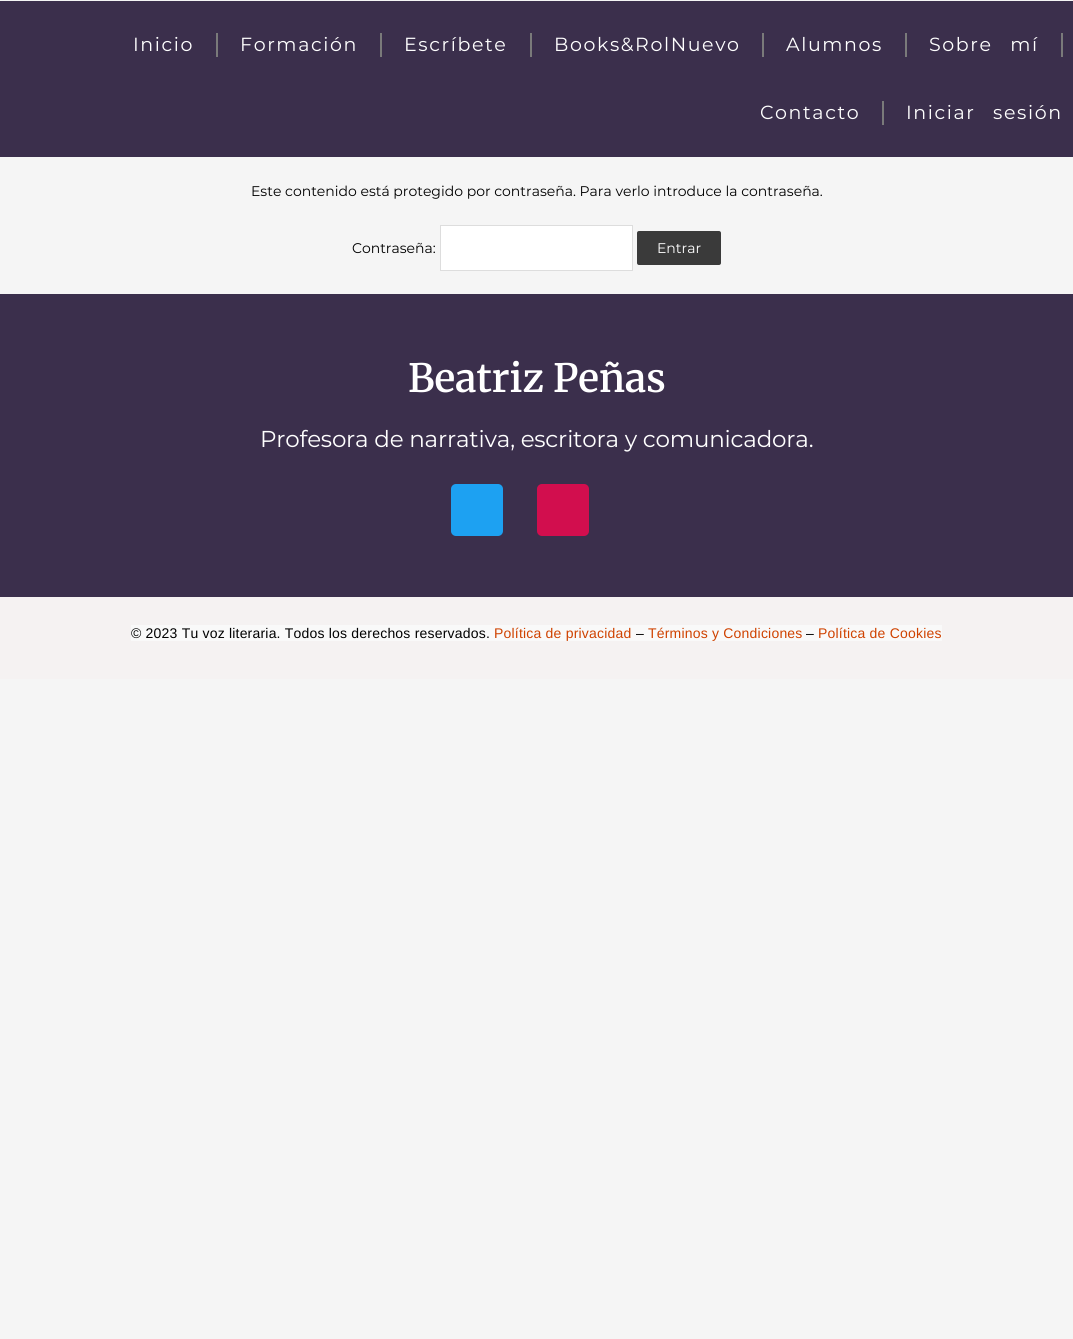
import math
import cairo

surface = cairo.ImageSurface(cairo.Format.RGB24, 1073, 1339)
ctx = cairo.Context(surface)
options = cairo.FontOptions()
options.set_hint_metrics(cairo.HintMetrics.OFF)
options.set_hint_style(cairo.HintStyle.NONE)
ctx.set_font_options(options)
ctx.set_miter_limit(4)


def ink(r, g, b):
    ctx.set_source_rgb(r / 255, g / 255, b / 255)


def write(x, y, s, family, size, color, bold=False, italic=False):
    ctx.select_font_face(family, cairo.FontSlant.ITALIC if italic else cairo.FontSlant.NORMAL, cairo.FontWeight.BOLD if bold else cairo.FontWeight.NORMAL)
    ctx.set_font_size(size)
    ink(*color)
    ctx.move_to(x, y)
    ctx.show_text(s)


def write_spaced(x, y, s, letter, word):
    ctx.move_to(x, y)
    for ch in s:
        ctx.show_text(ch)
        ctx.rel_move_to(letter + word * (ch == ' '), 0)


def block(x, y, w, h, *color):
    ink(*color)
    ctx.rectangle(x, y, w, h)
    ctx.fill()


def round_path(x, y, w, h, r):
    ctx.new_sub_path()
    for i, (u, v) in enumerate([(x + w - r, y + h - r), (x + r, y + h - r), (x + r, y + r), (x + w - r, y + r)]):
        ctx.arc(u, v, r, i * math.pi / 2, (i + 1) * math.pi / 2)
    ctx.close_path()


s1 = dict(family="Montserrat Thin", size=14, color=(0, 0, 0))
s2 = dict(family="Montserrat Thin", size=14, color=(255, 255, 255))
s3 = dict(family="Merriweather SemiBold", size=39, color=(255, 255, 255))

ink(245, 245, 245)
ctx.paint()
block(0, 1, 1073, 156, 59, 47, 76)
ctx.select_font_face("Montserrat Thin")
ctx.set_font_size(19)
ink(255, 255, 255)
write_spaced(133, 51, "Inicio", 1.6, 0)
block(216, 33, 2, 24, 122, 122, 122)
ink(255, 255, 255)
write_spaced(240, 51, "Formación", 1.6, 0)
block(380, 33, 2, 24, 122, 122, 122)
ink(255, 255, 255)
write_spaced(404, 51, "Escríbete", 1.6, 0)
block(530, 33, 2, 24, 122, 122, 122)
ink(255, 255, 255)
write_spaced(554, 51, "Books&RolNuevo", 1.6, 0)
block(762, 33, 2, 24, 122, 122, 122)
ink(255, 255, 255)
write_spaced(786, 51, "Alumnos", 1.6, 0)
block(905, 33, 2, 24, 122, 122, 122)
ink(255, 255, 255)
write_spaced(929, 51, "Sobre mí", 1.6, 11)
block(1061, 33, 2, 24, 122, 122, 122)
ink(255, 255, 255)
write_spaced(760, 119, "Contacto", 1.6, 0)
block(882, 101, 2, 24, 122, 122, 122)
ink(255, 255, 255)
write_spaced(906, 119, "Iniciar sesión", 1.6, 11)
write(251, 196, "Este contenido está protegido por contraseña. Para verlo introduce la contraseña.", **s1)
write(352, 253, "Contraseña:", **s1)
ink(255, 255, 255)
ctx.rectangle(440.5, 225.5, 192, 45)
ctx.fill_preserve()
ink(221, 221, 221)
ctx.set_line_width(1)
ctx.stroke()
ink(58, 58, 58)
round_path(637, 231, 84, 34, 2)
ctx.fill()
write(657, 253, "Entrar", **s2)
block(0, 294, 1073, 303, 59, 47, 76)
write(408, 392, "Beatriz Peñas", **s3)
ctx.select_font_face("Montserrat Thin")
ctx.set_font_size(23)
write_spaced(260, 447, "Profesora de narrativa, escritora y comunicadora.", -0.2, 0)
ink(29, 161, 242)
round_path(451, 484, 52, 52, 5)
ctx.fill()
ink(210, 14, 78)
round_path(537, 484, 52, 52, 5)
ctx.fill()
block(0, 597, 1073, 82, 245, 242, 242)
block(131, 625, 811, 16, 249, 249, 249)
ctx.select_font_face("Liberation Sans")
ctx.set_font_size(14)
ink(0, 0, 0)
write_spaced(131, 638, "© 2023 Tu voz literaria. Todos los derechos reservados.", 0.2, 0)
ink(207, 66, 0)
write_spaced(494, 638, "Política de privacidad", 0.2, 0)
ink(0, 0, 0)
write_spaced(636, 638, "–", 0.2, 0)
ink(207, 66, 0)
write_spaced(648, 638, "Términos y Condiciones", 0.2, 0)
ink(0, 0, 0)
write_spaced(806, 638, "–", 0.2, 0)
ink(207, 66, 0)
write_spaced(818, 638, "Política de Cookies", 0.2, 0)
surface.write_to_png("screenshot.png")
